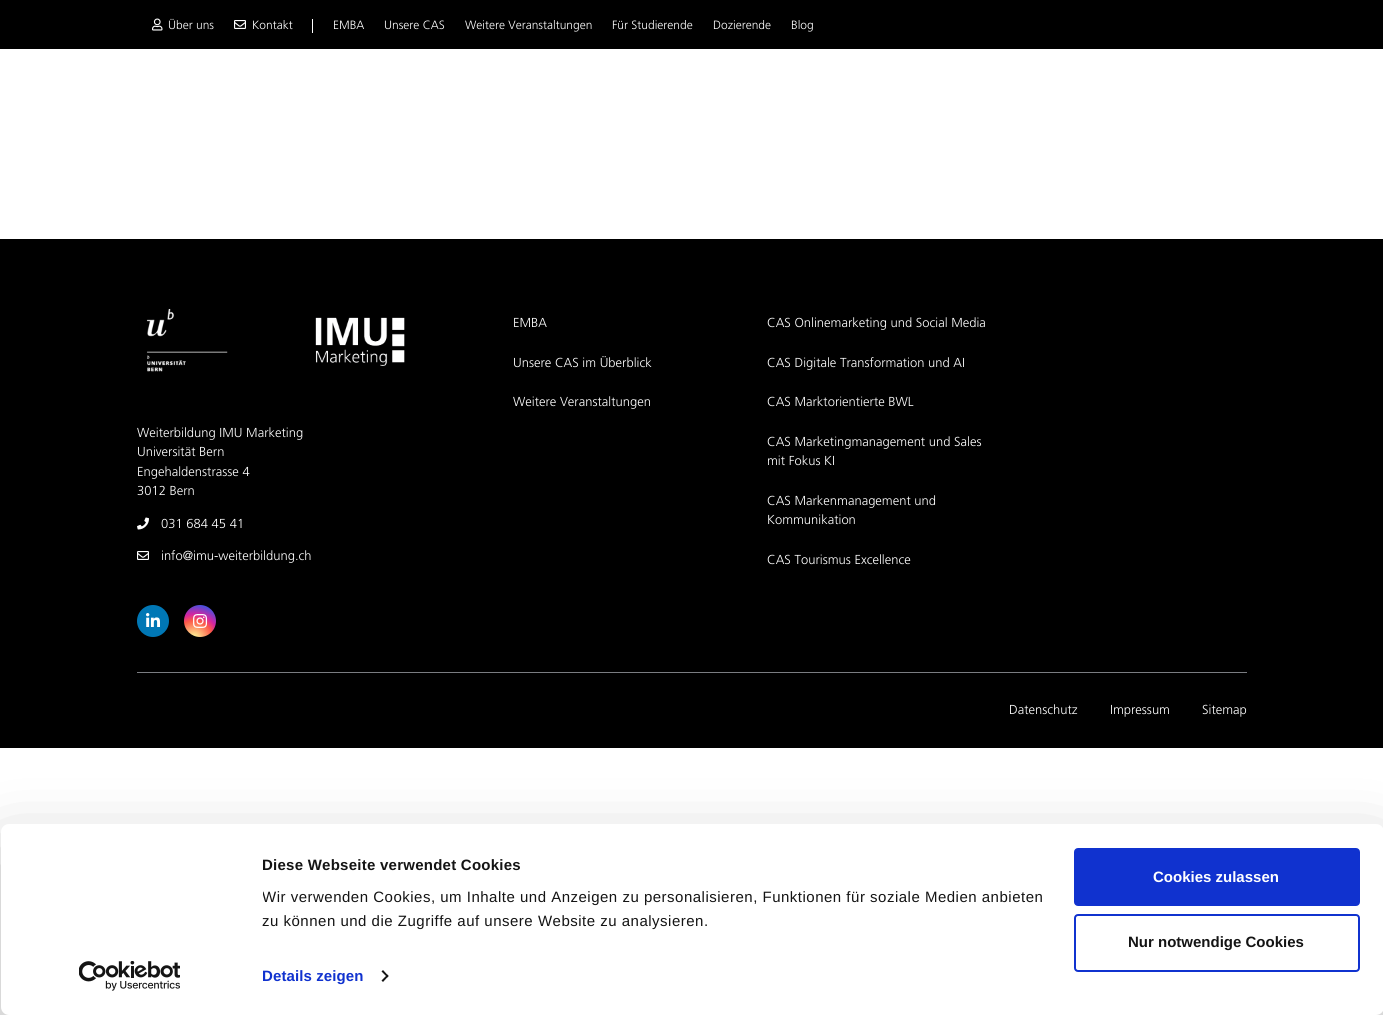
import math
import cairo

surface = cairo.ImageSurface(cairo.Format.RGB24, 1383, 1015)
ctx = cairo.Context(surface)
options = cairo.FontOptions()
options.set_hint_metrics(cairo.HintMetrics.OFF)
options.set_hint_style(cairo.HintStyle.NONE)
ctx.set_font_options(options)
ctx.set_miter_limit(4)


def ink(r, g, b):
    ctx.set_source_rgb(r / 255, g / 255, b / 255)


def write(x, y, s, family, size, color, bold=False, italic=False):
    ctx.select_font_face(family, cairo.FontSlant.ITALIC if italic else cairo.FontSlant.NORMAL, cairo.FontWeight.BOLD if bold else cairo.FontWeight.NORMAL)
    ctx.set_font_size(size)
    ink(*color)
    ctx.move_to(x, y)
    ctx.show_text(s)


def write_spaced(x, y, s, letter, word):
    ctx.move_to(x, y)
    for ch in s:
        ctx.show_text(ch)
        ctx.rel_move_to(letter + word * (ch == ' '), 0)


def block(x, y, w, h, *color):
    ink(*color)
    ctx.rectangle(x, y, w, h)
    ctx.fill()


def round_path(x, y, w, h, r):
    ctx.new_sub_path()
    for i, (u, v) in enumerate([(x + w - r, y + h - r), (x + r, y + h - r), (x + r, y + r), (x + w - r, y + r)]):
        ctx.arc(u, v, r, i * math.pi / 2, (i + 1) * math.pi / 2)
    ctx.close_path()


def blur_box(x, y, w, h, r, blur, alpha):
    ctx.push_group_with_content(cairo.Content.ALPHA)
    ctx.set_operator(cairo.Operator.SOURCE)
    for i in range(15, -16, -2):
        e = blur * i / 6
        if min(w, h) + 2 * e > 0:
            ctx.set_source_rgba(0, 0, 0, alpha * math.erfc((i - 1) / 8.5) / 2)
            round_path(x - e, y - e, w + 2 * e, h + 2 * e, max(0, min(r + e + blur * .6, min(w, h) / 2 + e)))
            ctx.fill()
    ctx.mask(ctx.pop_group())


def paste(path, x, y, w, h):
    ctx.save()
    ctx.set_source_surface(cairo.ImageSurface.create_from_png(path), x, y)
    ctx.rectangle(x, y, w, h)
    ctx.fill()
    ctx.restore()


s1 = dict(family="Frutiger Light", size=12, color=(255, 255, 255))
s2 = dict(family="Frutiger Light", size=13, color=(255, 255, 255))
s3 = dict(family="Liberation Sans", size=15, color=(255, 255, 255), bold=True)
s4 = dict(family="Liberation Sans", size=15, color=(20, 20, 20), bold=True)

ink(255, 255, 255)
ctx.paint()
block(0, 0, 1383, 49, 0, 0, 0)
paste("pic1.png", 152, 18, 11, 13)
write(168, 29, "Über uns", **s1)
paste("pic2.png", 234, 20, 12, 9)
write(252, 29, "Kontakt", **s1)
block(312, 19, 1, 14, 255, 255, 255)
write(333, 29, "EMBA", **s1)
write(384, 29, "Unsere CAS", **s1)
write(465, 29, "Weitere Veranstaltungen", **s1)
write(612, 29, "Für Studierende", **s1)
write(713, 29, "Dozierende", **s1)
write(791, 29, "Blog", **s1)
block(0, 239, 1383, 509, 0, 0, 0)
paste("pic3.png", 146, 308, 82, 64)
paste("pic4.png", 315, 317, 90, 49)
write(137, 437, "Weiterbildung IMU Marketing", **s2)
write(137, 456, "Universität Bern", **s2)
write(137, 476, "Engehaldenstrasse 4", **s2)
write(137, 495, "3012 Bern", **s2)
paste("pic5.png", 137, 517, 12, 13)
write(161, 528, "031 684 45 41", **s2)
paste("pic2.png", 137, 551, 12, 9)
write(161, 560, "info@imu-weiterbildung.ch", **s2)
ink(0, 119, 181)
ctx.new_path()
ctx.arc(153, 621, 16, 0, 2 * math.pi)
ctx.fill()
paste("pic6.png", 146, 613, 14, 14)
gradient = cairo.RadialGradient(194, 639, 0, 194, 639, 41)
gradient.add_color_stop_rgba(0, 0.992, 0.957, 0.592, 1)
gradient.add_color_stop_rgba(0.05, 0.992, 0.957, 0.592, 1)
gradient.add_color_stop_rgba(0.45, 0.992, 0.349, 0.286, 1)
gradient.add_color_stop_rgba(0.6, 0.839, 0.141, 0.624, 1)
gradient.add_color_stop_rgba(0.9, 0.157, 0.353, 0.922, 1)
ctx.set_source(gradient)
ctx.arc(200, 621, 16, 0, 2 * math.pi)
ctx.fill()
paste("pic7.png", 193, 614, 15, 14)
write(513, 327, "EMBA", **s2)
write(513, 367, "Unsere CAS im Überblick", **s2)
write(513, 406, "Weitere Veranstaltungen", **s2)
write(767, 327, "CAS Onlinemarketing und Social Media", **s2)
write(767, 367, "CAS Digitale Transformation und AI", **s2)
write(767, 406, "CAS Marktorientierte BWL", **s2)
write(767, 446, "CAS Marketingmanagement und Sales", **s2)
write(767, 465, "mit Fokus KI", **s2)
write(767, 505, "CAS Markenmanagement und", **s2)
write(767, 524, "Kommunikation", **s2)
write(767, 564, "CAS Tourismus Excellence", **s2)
block(137, 672, 1110, 1, 122, 124, 129)
write(1009, 714, "Datenschutz", **s2)
write(1110, 714, "Impressum", **s2)
write(1202, 714, "Sitemap", **s2)
ink(0, 0, 0)
blur_box(1, 854, 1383, 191, 8, 35, 0.3)
ink(255, 255, 255)
round_path(1, 824, 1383, 191, 8)
ctx.fill()
ctx.select_font_face("Liberation Sans", cairo.FontSlant.NORMAL, cairo.FontWeight.BOLD)
ctx.set_font_size(15)
ink(20, 20, 20)
write_spaced(262, 870, "Diese Webseite verwendet Cookies", 0.25, 0)
ctx.save()
ctx.rectangle(263, 854, 805, 79)
ctx.clip()
ctx.select_font_face("Liberation Sans")
write_spaced(262, 902, "Wir verwenden Cookies, um Inhalte und Anzeigen zu personalisieren, Funktionen für soziale Medien anbieten", 0.5, 0)
ctx.restore()
ctx.select_font_face("Liberation Sans")
write_spaced(262, 926, "zu können und die Zugriffe auf unsere Website zu analysieren.", 0.5, 0)
ctx.select_font_face("Liberation Sans", cairo.FontSlant.NORMAL, cairo.FontWeight.BOLD)
ink(16, 50, 207)
write_spaced(262, 981, "Details zeigen", 0.1, 0)
ink(20, 20, 20)
ctx.new_path()
ctx.move_to(383, 970)
ctx.line_to(388.5, 976)
ctx.line_to(387.5, 977.5)
ctx.line_to(381.5, 971.5)
ctx.close_path()
ctx.fill()
ctx.new_path()
ctx.move_to(387.5, 974.5)
ctx.line_to(388.5, 976)
ctx.line_to(383, 982)
ctx.line_to(381.5, 980.5)
ctx.close_path()
ctx.fill()
ink(16, 50, 207)
round_path(1075, 849, 284, 56, 3)
ctx.fill_preserve()
ctx.stroke()
write(1153, 882, "Cookies zulassen", **s3)
round_path(1075, 915, 284, 56, 3)
ink(16, 50, 207)
ctx.stroke()
write(1128, 947, "Nur notwendige Cookies", **s4)
paste("pic8.png", 79, 961, 101, 30)
surface.write_to_png("screenshot.png")
